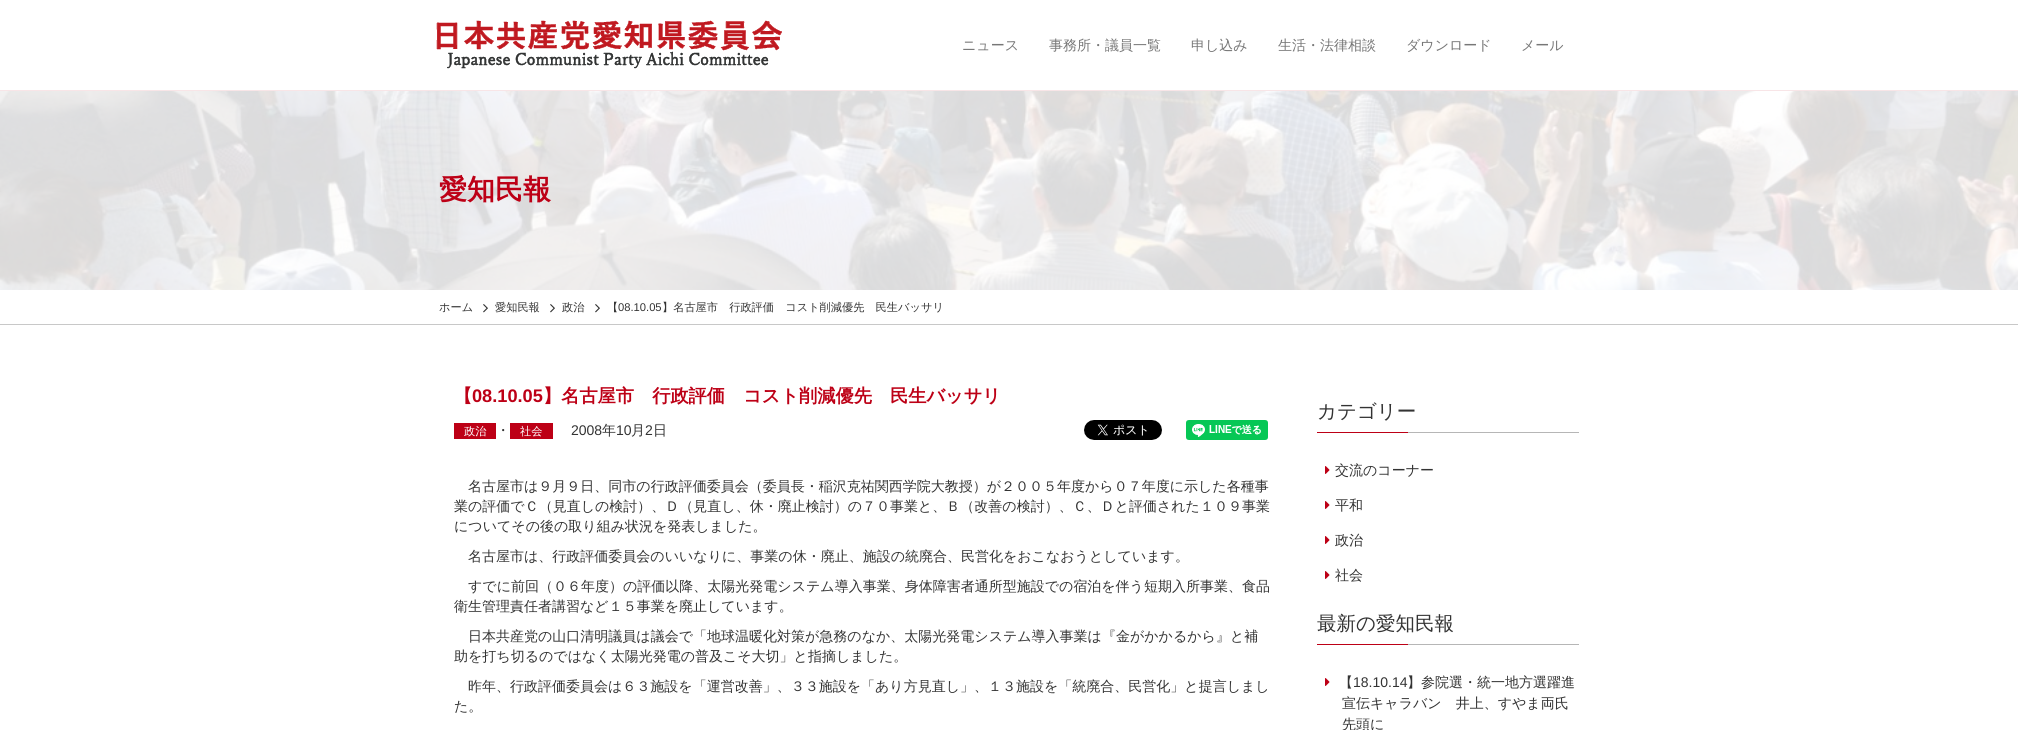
import math
import cairo

surface = cairo.ImageSurface(cairo.Format.RGB24, 2018, 730)
ctx = cairo.Context(surface)
options = cairo.FontOptions()
options.set_hint_metrics(cairo.HintMetrics.OFF)
options.set_hint_style(cairo.HintStyle.NONE)
ctx.set_font_options(options)
ctx.set_miter_limit(4)


def ink(r, g, b):
    ctx.set_source_rgb(r / 255, g / 255, b / 255)


def write(x, y, s, family, size, color, bold=False, italic=False):
    ctx.select_font_face(family, cairo.FontSlant.ITALIC if italic else cairo.FontSlant.NORMAL, cairo.FontWeight.BOLD if bold else cairo.FontWeight.NORMAL)
    ctx.set_font_size(size)
    ink(*color)
    ctx.move_to(x, y)
    ctx.show_text(s)


def block(x, y, w, h, *color):
    ink(*color)
    ctx.rectangle(x, y, w, h)
    ctx.fill()


def paste(path, x, y, w, h):
    ctx.save()
    ctx.set_source_surface(cairo.ImageSurface.create_from_png(path), x, y)
    ctx.rectangle(x, y, w, h)
    ctx.fill()
    ctx.restore()


s1 = dict(family="WenQuanYi Zen Hei Medium", size=14, color=(119, 119, 119))
s2 = dict(family="WenQuanYi Zen Hei", size=28, color=(189, 0, 22), bold=True)
s3 = dict(family="WenQuanYi Zen Hei Medium", size=11.2, color=(51, 51, 51))
s4 = dict(family="Liberation Sans", size=11.2, color=(51, 51, 51))
s5 = dict(family="WenQuanYi Zen Hei", size=18.2, color=(189, 0, 22), bold=True)
s6 = dict(family="Liberation Sans", size=18.2, color=(189, 0, 22), bold=True)
s7 = dict(family="WenQuanYi Zen Hei Medium", size=11.2, color=(255, 255, 255))
s8 = dict(family="WenQuanYi Zen Hei Medium", size=14, color=(51, 51, 51))
s9 = dict(family="Liberation Sans", size=14, color=(51, 51, 51))
s10 = dict(family="WenQuanYi Zen Hei Medium", size=19.5, color=(51, 51, 51))

ink(255, 255, 255)
ctx.paint()
block(0, 90, 2018, 1, 248, 229, 231)
paste("pic1.png", 436, 20, 346, 49)
write(962, 50, "ニュース", **s1)
write(1049, 50, "事務所・議員一覧", **s1)
write(1191, 50, "申し込み", **s1)
write(1278, 50, "生活・法律相談", **s1)
write(1406, 50, "ダウンロード", **s1)
write(1521, 50, "メール", **s1)
paste("pic2.png", 0, 91, 2018, 199)
write(439, 199, "愛知民報", **s2)
block(0, 324, 2018, 1, 200, 200, 200)
write(439, 311, "ホーム", **s3)
paste("pic3.png", 483, 304, 5, 9)
write(495, 311, "愛知民報", **s3)
paste("pic3.png", 550, 304, 5, 9)
write(562, 311, "政治", **s3)
paste("pic3.png", 595, 304, 5, 9)
write(607, 311, "【", **s3)
write(618, 311, "08.10.05", **s4)
write(662, 311, "】名古屋市　行政評価　コスト削減優先　民生バッサリ", **s3)
write(454, 402, "【", **s5)
write(472, 402, "08.10.05", **s6)
write(543, 402, "】名古屋市　行政評価　コスト削減優先　民生バッサリ", **s5)
block(454, 423, 42, 16, 189, 0, 22)
write(464, 435, "政治", **s7)
write(496, 435, "・", **s8)
block(510, 423, 43, 16, 189, 0, 22)
write(520, 435, "社会", **s7)
write(571, 435, "2008", **s9)
write(602, 435, "年", **s8)
write(616, 435, "10", **s9)
write(631, 435, "月", **s8)
write(645, 435, "2", **s9)
write(653, 435, "日", **s8)
paste("pic4.png", 1084, 420, 78, 20)
paste("pic5.png", 1186, 420, 82, 20)
write(468, 491, "名古屋市は９月９日、同市の行政評価委員会（委員長・稲沢克祐関西学院大教授）が２００５年度から０７年度に示した各種事", **s8)
write(454, 511, "業の評価でＣ（見直しの検討）、Ｄ（見直し、休・廃止検討）の７０事業と、Ｂ（改善の検討）、Ｃ、Ｄと評価された１０９事業", **s8)
write(454, 531, "についてその後の取り組み状況を発表しました。", **s8)
write(468, 561, "名古屋市は、行政評価委員会のいいなりに、事業の休・廃止、施設の統廃合、民営化をおこなおうとしています。", **s8)
write(468, 591, "すでに前回（０６年度）の評価以降、太陽光発電システム導入事業、身体障害者通所型施設での宿泊を伴う短期入所事業、食品", **s8)
write(454, 611, "衛生管理責任者講習など１５事業を廃止しています。", **s8)
write(468, 641, "日本共産党の山口清明議員は議会で「地球温暖化対策が急務のなか、太陽光発電システム導入事業は『金がかかるから』と補", **s8)
write(454, 661, "助を打ち切るのではなく太陽光発電の普及こそ大切」と指摘しました。", **s8)
write(468, 691, "昨年、行政評価委員会は６３施設を「運営改善」、３３施設を「あり方見直し」、１３施設を「統廃合、民営化」と提言しまし", **s8)
write(454, 711, "た。", **s8)
block(1408, 432, 171, 1, 182, 182, 182)
write(1317, 418, "カテゴリー", **s10)
block(1317, 432, 91, 1, 189, 0, 22)
paste("pic6.png", 1325, 466, 5, 8)
write(1335, 475, "交流のコーナー", **s8)
paste("pic6.png", 1325, 501, 5, 8)
write(1335, 510, "平和", **s8)
paste("pic6.png", 1325, 536, 5, 8)
write(1335, 545, "政治", **s8)
paste("pic6.png", 1325, 571, 5, 8)
write(1335, 580, "社会", **s8)
block(1408, 644, 171, 1, 182, 182, 182)
write(1317, 630, "最新の愛知民報", **s10)
block(1317, 644, 91, 1, 189, 0, 22)
paste("pic6.png", 1325, 678, 5, 8)
write(1339, 687, "【", **s8)
write(1353, 687, "18.10.14", **s9)
write(1407, 687, "】参院選・統一地方選躍進", **s8)
write(1342, 708, "宣伝キャラバン　井上、すやま両氏", **s8)
write(1342, 729, "先頭に", **s8)
surface.write_to_png("screenshot.png")
